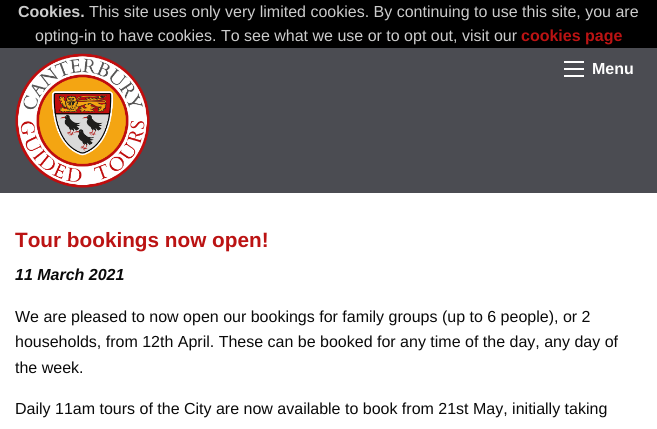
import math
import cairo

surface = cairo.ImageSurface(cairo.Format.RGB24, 657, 429)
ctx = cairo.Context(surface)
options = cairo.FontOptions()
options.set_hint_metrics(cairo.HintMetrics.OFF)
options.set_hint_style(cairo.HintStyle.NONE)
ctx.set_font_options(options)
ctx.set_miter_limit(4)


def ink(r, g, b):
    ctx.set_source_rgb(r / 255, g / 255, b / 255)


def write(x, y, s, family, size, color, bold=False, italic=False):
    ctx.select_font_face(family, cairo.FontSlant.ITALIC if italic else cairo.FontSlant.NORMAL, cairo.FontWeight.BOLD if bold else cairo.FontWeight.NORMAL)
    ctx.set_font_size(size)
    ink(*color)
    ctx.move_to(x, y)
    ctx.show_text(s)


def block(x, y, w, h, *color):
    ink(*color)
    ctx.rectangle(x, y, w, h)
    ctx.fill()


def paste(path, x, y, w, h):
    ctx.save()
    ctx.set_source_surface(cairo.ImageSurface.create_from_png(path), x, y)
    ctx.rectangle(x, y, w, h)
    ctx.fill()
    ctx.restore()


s1 = dict(family="Liberation Sans", size=16, color=(204, 204, 204), bold=True)
s2 = dict(family="Liberation Sans", size=16, color=(204, 204, 204))
s3 = dict(family="Liberation Sans", size=16, color=(187, 19, 19), bold=True)
s4 = dict(family="Liberation Sans", size=16, color=(254, 254, 254), bold=True)
s5 = dict(family="Liberation Sans", size=20.75, color=(187, 19, 19), bold=True)
s6 = dict(family="Liberation Sans", size=16, color=(10, 10, 10), bold=True, italic=True)
s7 = dict(family="Liberation Sans", size=16, color=(10, 10, 10))

ink(255, 255, 255)
ctx.paint()
block(0, 0, 657, 48, 0, 0, 0)
write(18, 17, "Cookies.", **s1)
write(89, 17, "This site uses only very limited cookies. By continuing to use this site, you are", **s2)
write(35, 41, "opting-in to have cookies. To see what we use or to opt out, visit our", **s2)
write(521, 41, "cookies page", **s3)
block(0, 48, 657, 145, 75, 76, 82)
paste("pic1.png", 15, 53, 135, 135)
block(564, 75, 20, 2, 254, 254, 254)
block(564, 68, 20, 2, 254, 254, 254)
block(564, 61, 20, 2, 254, 254, 254)
write(592, 74, "Menu", **s4)
write(15, 247, "Tour bookings now open!", **s5)
write(15, 280, "11 March 2021", **s6)
write(15, 322, "We are pleased to now open our bookings for family groups (up to 6 people), or 2", **s7)
write(15, 347, "households, from 12th April. These can be booked for any time of the day, any day of", **s7)
write(15, 373, "the week.", **s7)
write(15, 414, "Daily 11am tours of the City are now available to book from 21st May, initially taking", **s7)
surface.write_to_png("screenshot.png")
